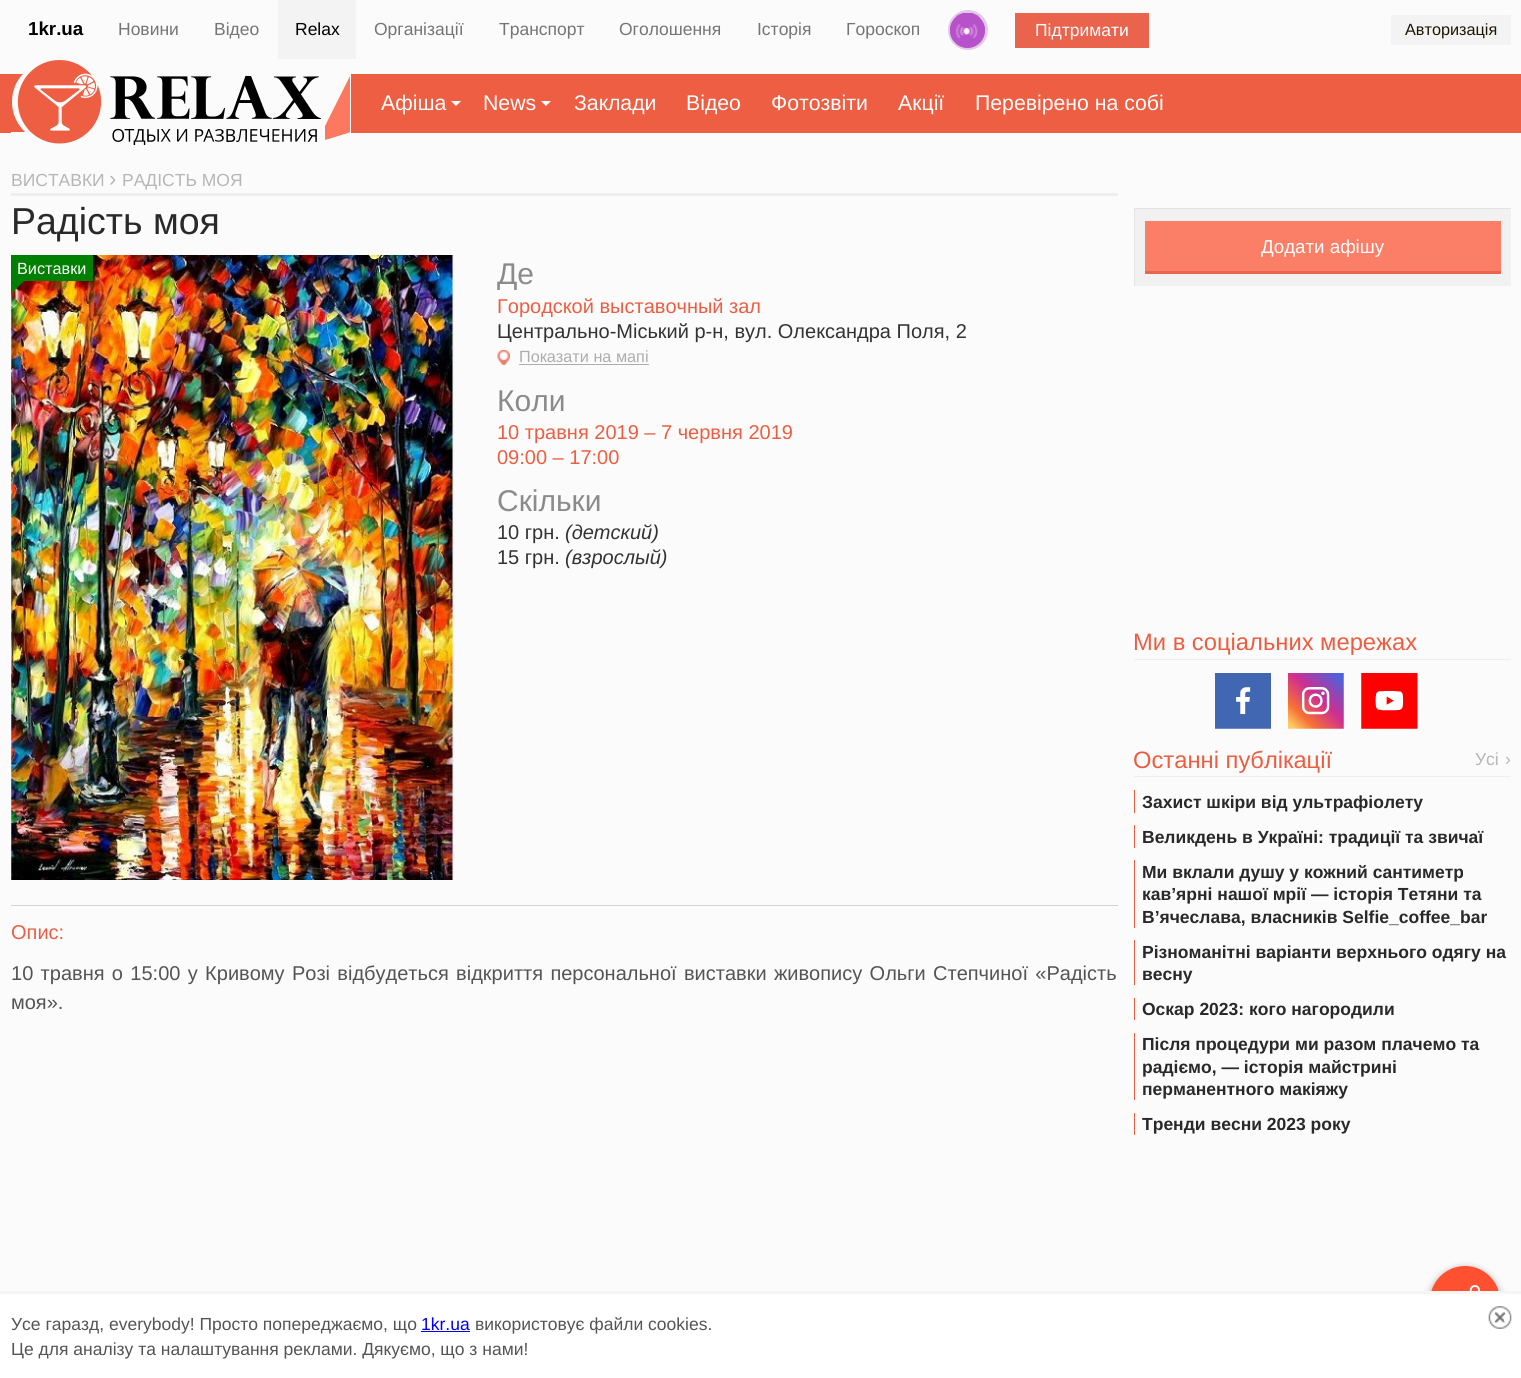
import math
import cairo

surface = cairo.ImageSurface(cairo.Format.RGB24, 1521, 1378)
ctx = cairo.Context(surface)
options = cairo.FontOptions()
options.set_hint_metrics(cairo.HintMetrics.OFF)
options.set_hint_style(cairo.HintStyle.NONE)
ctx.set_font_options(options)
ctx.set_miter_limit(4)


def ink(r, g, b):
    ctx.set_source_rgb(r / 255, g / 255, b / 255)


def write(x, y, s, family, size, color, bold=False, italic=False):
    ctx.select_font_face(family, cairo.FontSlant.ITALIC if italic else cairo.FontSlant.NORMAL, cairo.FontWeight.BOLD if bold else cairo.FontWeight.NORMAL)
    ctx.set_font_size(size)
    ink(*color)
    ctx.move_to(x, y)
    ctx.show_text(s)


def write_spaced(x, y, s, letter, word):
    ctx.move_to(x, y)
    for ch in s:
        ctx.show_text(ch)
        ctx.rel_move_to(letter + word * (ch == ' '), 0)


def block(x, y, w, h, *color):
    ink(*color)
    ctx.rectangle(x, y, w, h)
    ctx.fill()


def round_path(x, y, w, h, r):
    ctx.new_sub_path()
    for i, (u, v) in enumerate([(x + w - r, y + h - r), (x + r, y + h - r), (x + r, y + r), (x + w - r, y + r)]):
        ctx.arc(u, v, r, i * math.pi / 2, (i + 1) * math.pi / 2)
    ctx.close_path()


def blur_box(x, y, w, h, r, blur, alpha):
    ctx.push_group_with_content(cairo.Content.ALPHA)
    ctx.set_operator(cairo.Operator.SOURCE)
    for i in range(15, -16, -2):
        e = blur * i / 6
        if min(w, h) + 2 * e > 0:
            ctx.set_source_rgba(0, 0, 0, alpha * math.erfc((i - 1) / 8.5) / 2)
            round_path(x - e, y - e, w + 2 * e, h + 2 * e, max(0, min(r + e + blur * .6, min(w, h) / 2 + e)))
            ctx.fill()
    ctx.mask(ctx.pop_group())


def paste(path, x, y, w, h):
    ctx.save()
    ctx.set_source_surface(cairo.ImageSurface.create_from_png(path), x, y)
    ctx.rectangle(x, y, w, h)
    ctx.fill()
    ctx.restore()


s1 = dict(family="Liberation Sans", size=18.75, color=(0, 0, 0), bold=True)
s2 = dict(family="Liberation Sans", size=17.5, color=(117, 117, 117))
s3 = dict(family="Liberation Sans", size=17.5, color=(0, 0, 0))
s4 = dict(family="Liberation Sans", size=17.5, color=(255, 255, 255))
s5 = dict(family="Liberation Sans", size=16.25, color=(30, 22, 0))
s6 = dict(family="Liberation Sans", size=21.25, color=(255, 255, 255))
s7 = dict(family="Liberation Sans", size=17.5, color=(182, 182, 182))
s8 = dict(family="Liberation Sans", size=22, color=(182, 182, 182))
s9 = dict(family="Liberation Sans", size=37.5, color=(41, 41, 41))
s10 = dict(family="Liberation Sans", size=16.25, color=(255, 255, 255))
s11 = dict(family="Liberation Sans", size=30, color=(139, 139, 139))
s12 = dict(family="Liberation Sans", size=20, color=(236, 94, 66))
s13 = dict(family="Liberation Sans", size=20, color=(51, 51, 51))
s14 = dict(family="Liberation Sans", size=16.25, color=(173, 173, 173))
s15 = dict(family="Liberation Sans", size=20, color=(51, 51, 51), italic=True)
s16 = dict(family="Liberation Sans", size=20, color=(84, 84, 84))
s17 = dict(family="Liberation Sans", size=18.75, color=(255, 255, 255))
s18 = dict(family="Liberation Sans", size=23.75, color=(236, 94, 66))
s19 = dict(family="Liberation Sans", size=17.5, color=(41, 41, 41), bold=True)
s20 = dict(family="Liberation Sans", size=17.5, color=(84, 84, 84))
s21 = dict(family="Liberation Sans", size=17.5, color=(0, 0, 238))

ink(251, 251, 251)
ctx.paint()
write(28, 35, "1kr.ua", **s1)
write(118, 35, "Новини", **s2)
write(214, 35, "Відео", **s2)
block(278, 0, 78, 59, 243, 243, 243)
write(295, 35, "Relax", **s3)
write(374, 35, "Організації", **s2)
write(499, 35, "Транспорт", **s2)
write(619, 35, "Оголошення", **s2)
write(757, 35, "Історія", **s2)
write(846, 35, "Гороскоп", **s2)
ctx.new_path()
ctx.arc(968, 30, 18.5, 0, 2 * math.pi)
ink(228, 200, 233)
ctx.set_line_width(3)
ctx.stroke()
ctx.set_source_rgba(0.678, 0.314, 0.745, 0.9)
ctx.arc(967.5, 30.5, 17.5, 0, 2 * math.pi)
ctx.fill()
paste("pic1.png", 950, 13, 35, 35)
block(1015, 13, 134, 35, 234, 99, 77)
write(1035, 36, "Підтримати", **s4)
block(1391, 15, 120, 30, 243, 243, 243)
write(1405, 35, "Авторизація", **s5)
block(0, 74, 1521, 59, 237, 94, 66)
block(11, 74, 340, 59, 251, 251, 251)
ink(237, 94, 66)
ctx.new_path()
ctx.move_to(12, 102)
ctx.curve_to(12, 91, 16, 81, 23, 74)
ctx.line_to(11, 74)
ctx.line_to(11, 132)
ctx.line_to(25, 132)
ctx.curve_to(17, 124, 12, 114, 12, 102)
ctx.close_path()
ctx.fill()
paste("pic2.png", 17, 60, 304, 85)
ctx.save()
ctx.rectangle(325, 74, 25, 66)
ctx.clip()
ink(252, 120, 94)
ctx.new_path()
ctx.move_to(351, 132)
ctx.line_to(351, 74)
ctx.line_to(325, 126)
ctx.line_to(325, 140)
ctx.close_path()
ctx.fill()
ctx.restore()
write(381, 110, "Афіша", **s6)
ctx.new_path()
ctx.move_to(451, 101)
ctx.line_to(461, 101)
ctx.line_to(456, 106)
ctx.close_path()
ctx.fill()
write(483, 110, "News", **s6)
ctx.new_path()
ctx.move_to(541, 101)
ctx.line_to(551, 101)
ctx.line_to(546, 106)
ctx.close_path()
ctx.fill()
write(574, 110, "Заклади", **s6)
write(686, 110, "Відео", **s6)
write(771, 110, "Фотозвіти", **s6)
write(898, 110, "Акції", **s6)
write(975, 110, "Перевірено на собі", **s6)
block(11, 193, 1107, 3, 238, 238, 238)
write(11, 186, "ВИСТАВКИ", **s7)
write(109, 186, "›", **s8)
write(122, 186, "РАДІСТЬ МОЯ", **s7)
write(11, 234, "Радість моя", **s9)
paste("pic3.png", 11, 255, 443, 625)
paste("pic4.png", 11, 255, 442, 625)
block(11, 255, 82, 26, 0, 128, 0)
write(17, 274, "Виставки", **s10)
ink(0, 128, 0)
ctx.new_path()
ctx.move_to(11, 281)
ctx.line_to(24, 281)
ctx.line_to(17.5, 287.5)
ctx.close_path()
ctx.fill()
ctx.new_path()
ctx.move_to(11, 294)
ctx.line_to(11, 281)
ctx.line_to(17.5, 287.5)
ctx.close_path()
ctx.fill()
write(497, 284, "Де", **s11)
write(497, 313, "Городской выставочный зал", **s12)
write(497, 338, "Центрально-Міський р-н, вул. Олександра Поля, 2", **s13)
paste("pic5.png", 497, 350, 13, 15)
write(519, 362, "Показати на мапі", **s14)
block(519, 364, 130, 1, 173, 173, 173)
write(497, 411, "Коли", **s11)
write(497, 439, "10 травня 2019 – 7 червня 2019", **s12)
write(497, 464, "09:00 – 17:00", **s12)
write(497, 511, "Скільки", **s11)
write(497, 539, "10 грн.", **s13)
write(565, 539, "(детский)", **s15)
write(497, 564, "15 грн.", **s13)
write(565, 564, "(взрослый)", **s15)
block(11, 905, 1107, 1, 211, 211, 211)
write(11, 939, "Опис:", **s12)
ink(84, 84, 84)
write_spaced(11, 980, "10 травня о 15:00 у Кривому Розі відбудеться відкриття персональної виставки живопису Ольги Степчиної «Радість", 0, 1.8)
write(11, 1009, "моя».", **s16)
ink(0, 0, 0)
blur_box(1430, 1271, 70, 70, 35, 5, 0.28)
blur_box(1430, 1266, 70, 70, 35, 2.5, 0.14)
ink(255, 80, 47)
ctx.arc(1465, 1301, 35, 0, 2 * math.pi)
ctx.fill()
paste("pic6.png", 1469, 1285, 11, 6)
block(1135, 209, 376, 77, 241, 241, 241)
block(1134, 208, 377, 1, 227, 227, 227)
block(1134, 208, 1, 78, 227, 227, 227)
block(1145, 221, 356, 50, 251, 126, 102)
block(1145, 271, 356, 3, 234, 100, 78)
write(1261, 253, "Додати афішу", **s17)
block(1134, 659, 377, 1, 238, 238, 238)
write(1133, 650, "Ми в соціальних мережах", **s18)
paste("pic7.png", 1215, 673, 56, 56)
paste("pic8.png", 1288, 673, 56, 56)
paste("pic9.png", 1361, 673, 57, 56)
block(1134, 776, 377, 1, 238, 238, 238)
write(1133, 768, "Останні публікації", **s18)
write(1475, 765, "Усі", **s7)
write(1505, 765, "›", **s7)
block(1134, 790, 1, 23, 237, 94, 66)
write(1142, 808, "Захист шкіри від ультрафіолету", **s19)
block(1134, 825, 1, 23, 237, 94, 66)
write(1142, 843, "Великдень в Україні: традиції та звичаї", **s19)
block(1134, 860, 1, 68, 237, 94, 66)
write(1142, 878, "Ми вклали душу у кожний сантиметр", **s19)
write(1142, 900, "кав’ярні нашої мрії — історія Тетяни та", **s19)
write(1142, 923, "В’ячеслава, власників Selfie_coffee_bar", **s19)
block(1134, 940, 1, 45, 237, 94, 66)
write(1142, 958, "Різноманітні варіанти верхнього одягу на", **s19)
write(1142, 980, "весну", **s19)
block(1134, 998, 1, 22, 237, 94, 66)
write(1142, 1015, "Оскар 2023: кого нагородили", **s19)
block(1134, 1033, 1, 67, 237, 94, 66)
write(1142, 1050, "Після процедури ми разом плачемо та", **s19)
write(1142, 1073, "радіємо, — історія майстрині", **s19)
write(1142, 1095, "перманентного макіяжу", **s19)
block(1134, 1113, 1, 22, 237, 94, 66)
write(1142, 1130, "Тренди весни 2023 року", **s19)
block(0, 1294, 1521, 84, 255, 255, 255)
block(0, 1291, 1521, 3, 245, 245, 245)
write(11, 1330, "Усе гаразд, everybody! Просто попереджаємо, що", **s20)
write(421, 1330, "1kr.ua", **s21)
block(421, 1331, 49, 1, 0, 0, 238)
write(475, 1330, "використовує файли cookies.", **s20)
write(11, 1355, "Це для аналізу та налаштування реклами. Дякуємо, що з нами!", **s20)
paste("pic10.png", 1488, 1306, 24, 23)
surface.write_to_png("screenshot.png")
